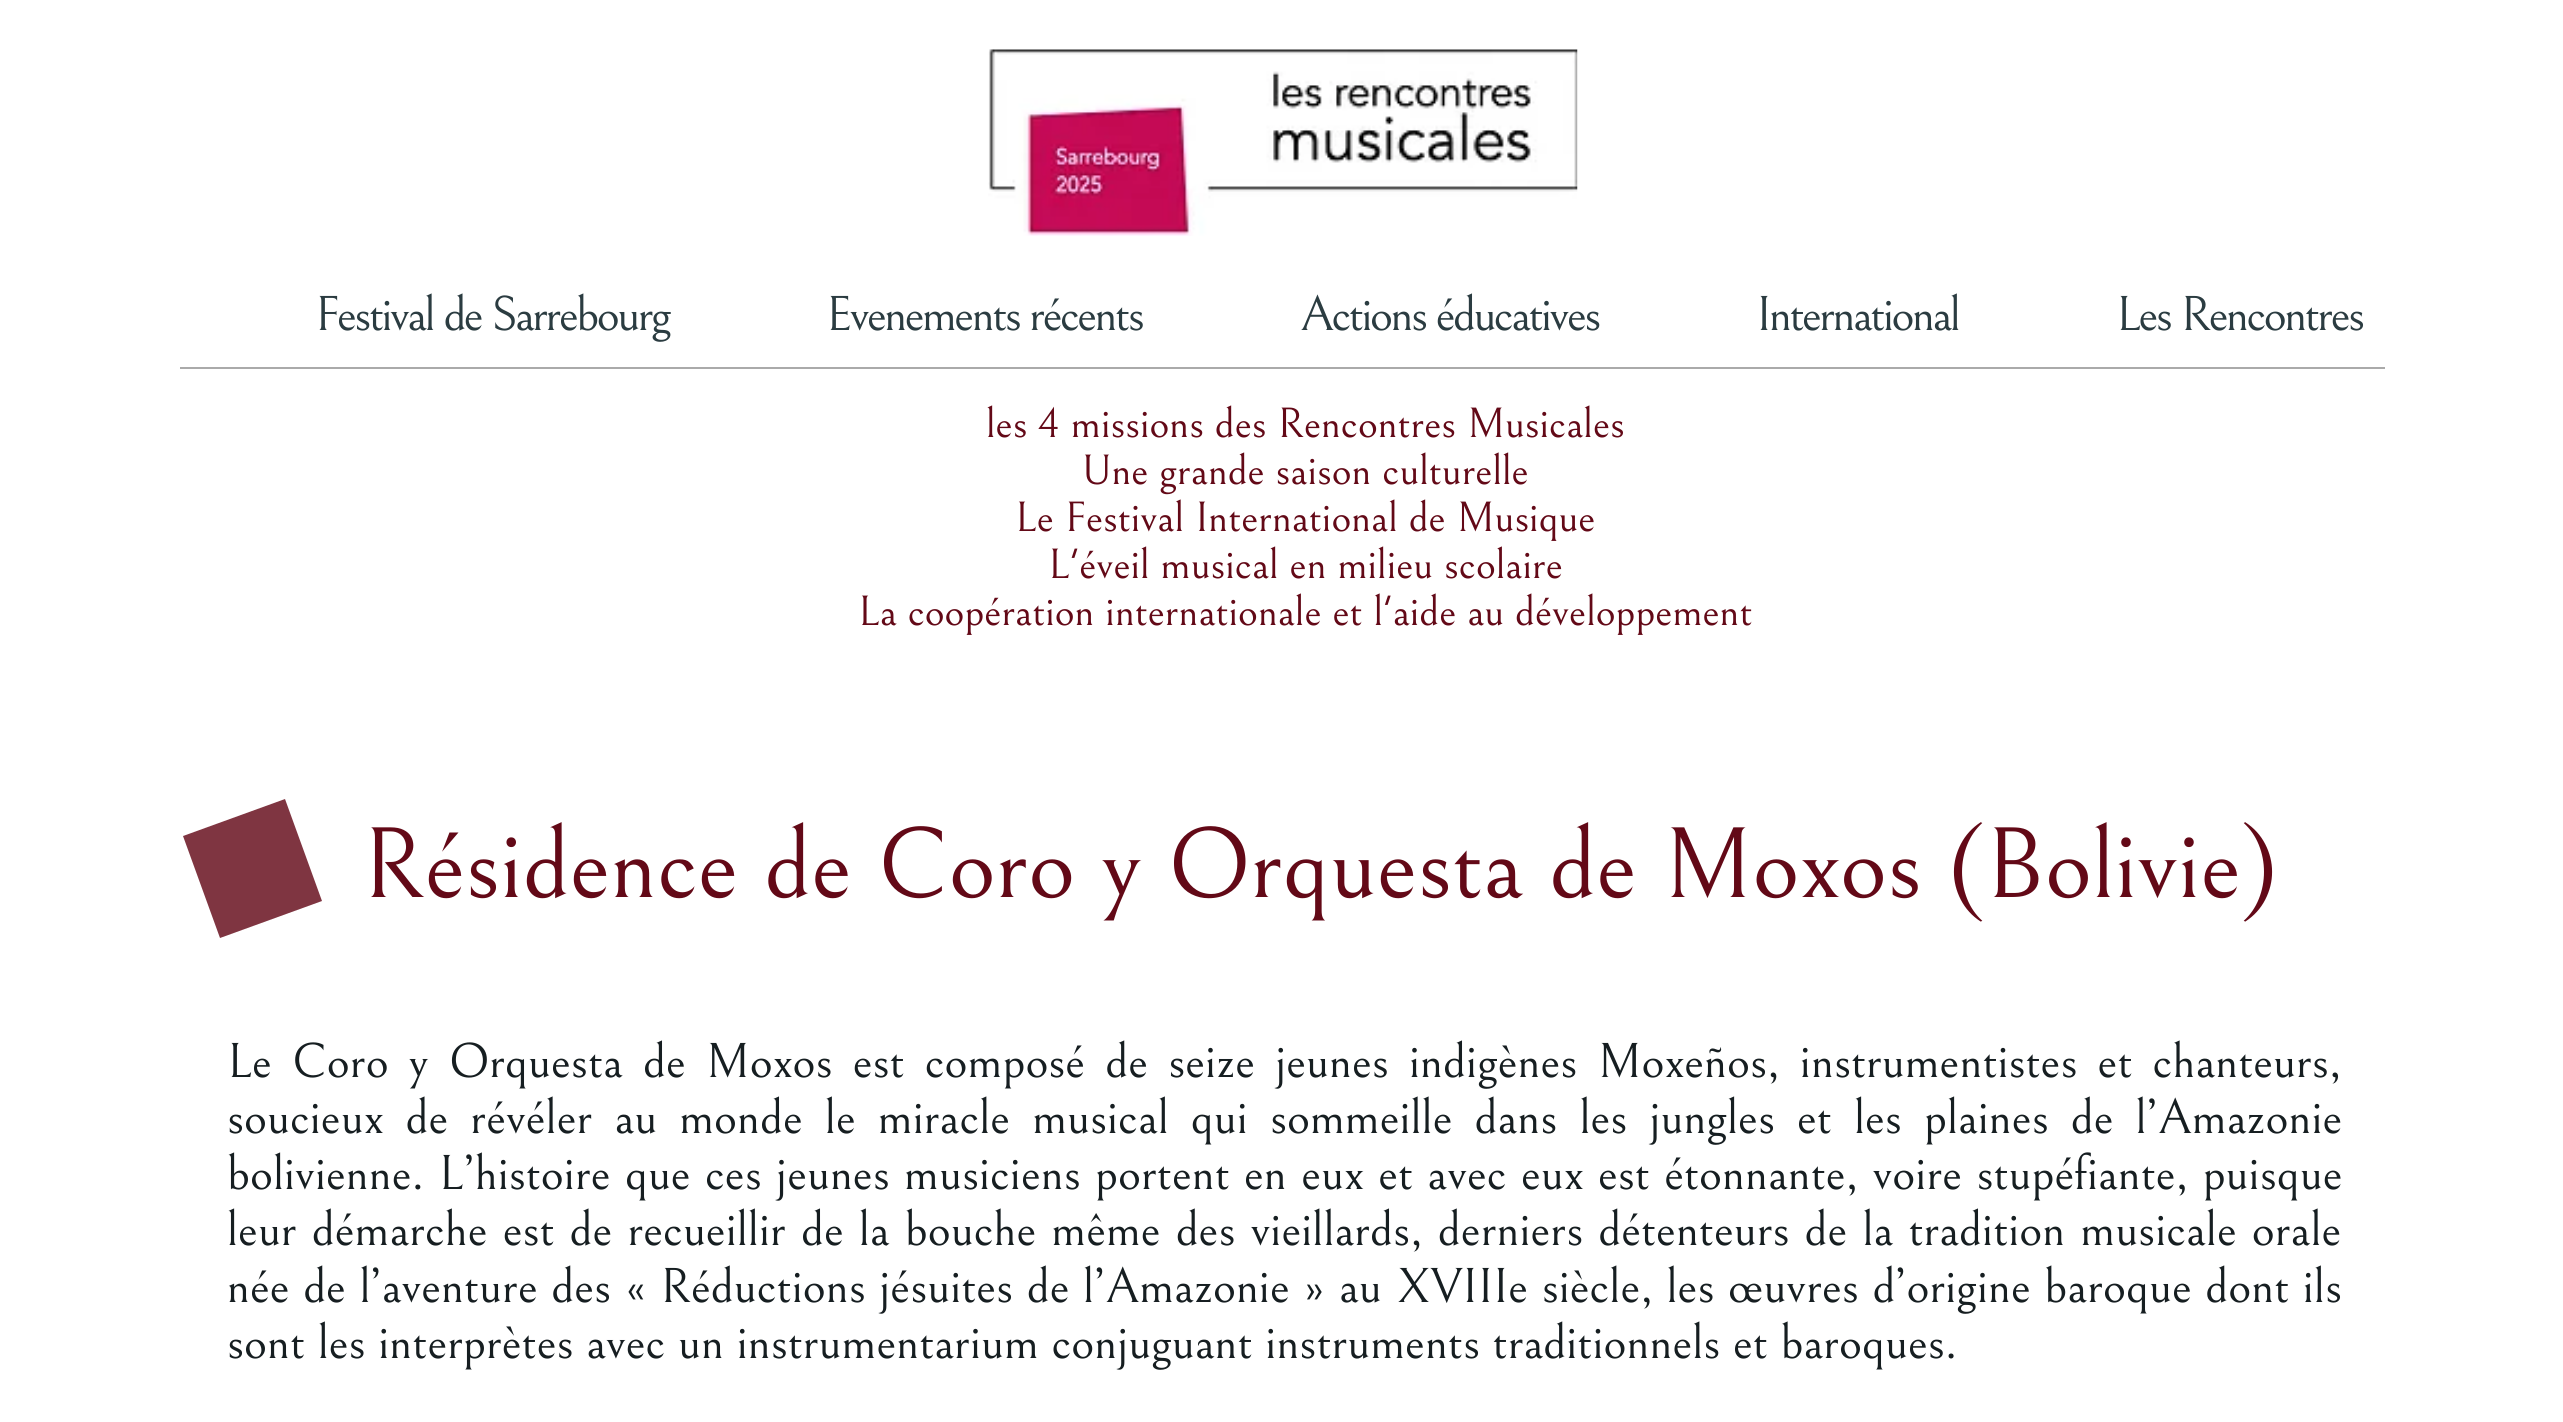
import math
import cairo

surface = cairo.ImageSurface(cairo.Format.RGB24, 2563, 1422)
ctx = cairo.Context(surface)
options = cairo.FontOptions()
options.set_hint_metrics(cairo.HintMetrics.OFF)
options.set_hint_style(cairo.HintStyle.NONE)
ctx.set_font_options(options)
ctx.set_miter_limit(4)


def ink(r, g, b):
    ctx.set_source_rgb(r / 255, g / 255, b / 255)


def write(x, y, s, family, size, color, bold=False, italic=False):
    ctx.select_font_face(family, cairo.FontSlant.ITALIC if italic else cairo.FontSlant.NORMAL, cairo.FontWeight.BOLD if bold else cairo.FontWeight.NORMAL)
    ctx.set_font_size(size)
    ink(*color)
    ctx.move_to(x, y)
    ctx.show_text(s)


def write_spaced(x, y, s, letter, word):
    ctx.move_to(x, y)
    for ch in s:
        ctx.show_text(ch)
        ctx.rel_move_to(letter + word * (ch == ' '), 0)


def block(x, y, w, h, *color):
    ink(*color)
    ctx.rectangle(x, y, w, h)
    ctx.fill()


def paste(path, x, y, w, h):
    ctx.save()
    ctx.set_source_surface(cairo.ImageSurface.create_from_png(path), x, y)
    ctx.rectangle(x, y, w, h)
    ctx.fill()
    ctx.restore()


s1 = dict(family="Bellefair", size=42.75, color=(99, 9, 23))
s2 = dict(family="Bellefair", size=101.25, color=(99, 9, 23))
s3 = dict(family="Bellefair", size=49.5, color=(22, 30, 33))

ink(255, 255, 255)
ctx.paint()
paste("pic1.png", 988, 49, 590, 187)
block(180, 367, 2205, 2, 170, 170, 170)
ctx.select_font_face("Bellefair")
ctx.set_font_size(49.5)
ink(43, 60, 65)
write_spaced(315, 330, "Festival de Sarrebourg", -2.5, 0)
write_spaced(826, 330, "Evenements récents", -2.5, 0)
write_spaced(1300, 330, "Actions éducatives", -2.5, 0)
write_spaced(1756, 330, "International", -2.5, 0)
write_spaced(2116, 330, "Les Rencontres", -2.5, 0)
write(986, 437, "les 4 missions des Rencontres Musicales", **s1)
write(1081, 484, "Une grande saison culturelle", **s1)
write(1015, 531, "Le Festival International de Musique", **s1)
write(1048, 578, "L'éveil musical en milieu scolaire", **s1)
write(858, 625, "La coopération internationale et l'aide au développement", **s1)
ink(127, 53, 65)
ctx.new_path()
ctx.move_to(285, 799)
ctx.line_to(322, 901)
ctx.line_to(220, 938)
ctx.line_to(183, 836)
ctx.close_path()
ctx.fill()
write(362, 897, "Résidence de Coro y Orquesta de Moxos (Bolivie)", **s2)
ctx.set_font_size(49.5)
ink(22, 30, 33)
write_spaced(227, 1077, "Le Coro y Orquesta de Moxos est composé de seize jeunes indigènes Moxeños, instrumentistes et chanteurs,", 0, 7.5)
write_spaced(227, 1133, "soucieux de révéler au monde le miracle musical qui sommeille dans les jungles et les plaines de l’Amazonie", 0, 9.4)
write_spaced(227, 1189, "bolivienne. L’histoire que ces jeunes musiciens portent en eux et avec eux est étonnante, voire stupéfiante, puisque", 0, 1.7)
write_spaced(227, 1245, "leur démarche est de recueillir de la bouche même des vieillards, derniers détenteurs de la tradition musicale orale", 0, 2.4)
write_spaced(227, 1302, "née de l’aventure des « Réductions jésuites de l’Amazonie » au XVIIIe siècle, les œuvres d’origine baroque dont ils", 0, 0.9)
write(227, 1358, "sont les interprètes avec un instrumentarium conjuguant instruments traditionnels et baroques.", **s3)
surface.write_to_png("screenshot.png")
